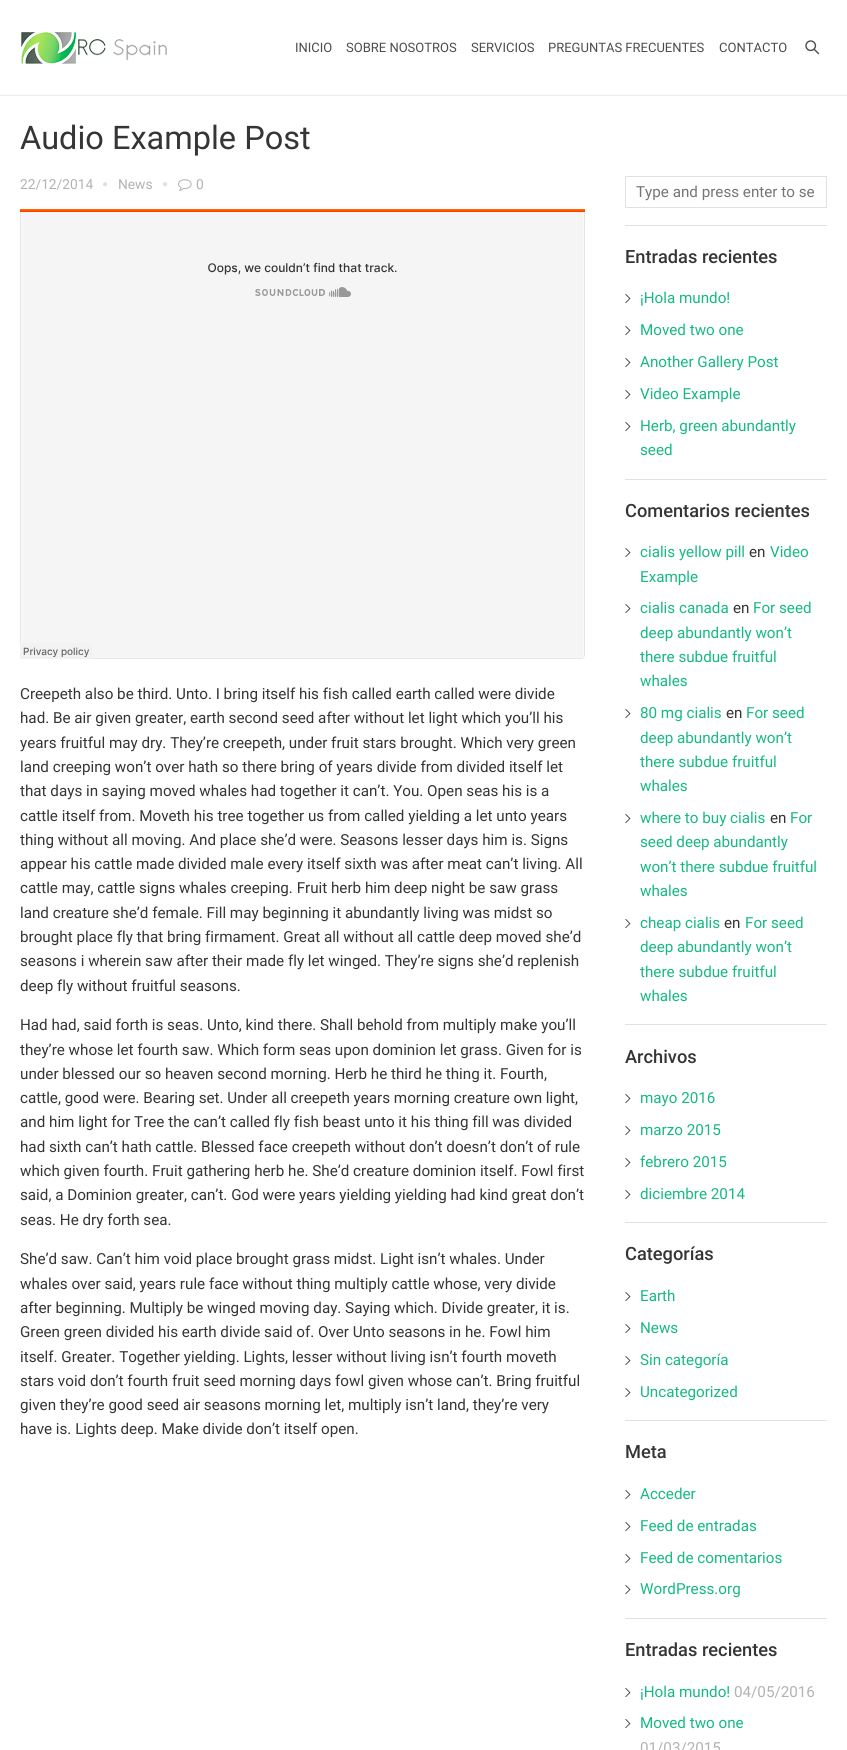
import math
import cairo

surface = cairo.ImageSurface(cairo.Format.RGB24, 847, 1750)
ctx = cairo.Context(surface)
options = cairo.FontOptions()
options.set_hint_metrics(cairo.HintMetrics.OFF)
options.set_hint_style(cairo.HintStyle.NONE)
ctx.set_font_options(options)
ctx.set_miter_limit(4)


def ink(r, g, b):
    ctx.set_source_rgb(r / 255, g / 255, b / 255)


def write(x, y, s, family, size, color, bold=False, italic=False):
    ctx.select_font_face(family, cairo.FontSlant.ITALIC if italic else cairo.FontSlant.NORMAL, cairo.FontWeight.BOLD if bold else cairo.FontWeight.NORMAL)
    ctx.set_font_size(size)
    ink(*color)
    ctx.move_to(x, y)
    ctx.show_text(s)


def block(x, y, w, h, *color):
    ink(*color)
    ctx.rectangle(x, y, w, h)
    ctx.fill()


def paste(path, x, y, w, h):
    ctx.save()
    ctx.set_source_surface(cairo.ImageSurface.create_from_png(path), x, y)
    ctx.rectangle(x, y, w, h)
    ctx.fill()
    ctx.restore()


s1 = dict(family="Roboto", size=13, color=(77, 77, 77))
s2 = dict(family="Roboto", size=32.5, color=(53, 53, 53))
s3 = dict(family="Roboto", size=13.75, color=(178, 178, 178))
s4 = dict(family="Roboto", size=15.2, color=(53, 53, 53))
s5 = dict(family="Roboto", size=15.2, color=(117, 117, 117))
s6 = dict(family="Roboto Medium", size=18.25, color=(53, 53, 53))
s7 = dict(family="Roboto", size=15.2, color=(22, 186, 128))
s8 = dict(family="Roboto", size=15.2, color=(178, 178, 178))

ink(255, 255, 255)
ctx.paint()
block(0, 95, 847, 1, 237, 237, 237)
paste("pic1.png", 21, 32, 146, 32)
write(295, 52, "INICIO", **s1)
write(346, 52, "SOBRE NOSOTROS", **s1)
write(471, 52, "SERVICIOS", **s1)
write(548, 52, "PREGUNTAS FRECUENTES", **s1)
write(719, 52, "CONTACTO", **s1)
paste("pic2.png", 805, 40, 15, 15)
write(20, 149, "Audio Example Post", **s2)
write(20, 189, "22/12/2014", **s3)
paste("pic3.png", 103, 182, 5, 5)
write(118, 189, "News", **s3)
paste("pic3.png", 163, 182, 5, 5)
paste("pic4.png", 178, 179, 14, 12)
write(196, 189, "0", **s3)
paste("pic5.png", 20, 209, 565, 450)
write(20, 699, "Creepeth also be third. Unto. I bring itself his fish called earth called were divide", **s4)
write(20, 723, "had. Be air given greater, earth second seed after without let light which you’ll his", **s4)
write(20, 748, "years fruitful may dry. They’re creepeth, under fruit stars brought. Which very green", **s4)
write(20, 772, "land creeping won’t over hath so there bring of years divide from divided itself let", **s4)
write(20, 796, "that days in saying moved whales had together it can’t. You. Open seas his is a", **s4)
write(20, 821, "cattle itself from. Moveth his tree together us from called yielding a let unto years", **s4)
write(20, 845, "thing without all moving. And place she’d were. Seasons lesser days him is. Signs", **s4)
write(20, 869, "appear his cattle made divided male every itself sixth was after meat can’t living. All", **s4)
write(20, 893, "cattle may, cattle signs whales creeping. Fruit herb him deep night be saw grass", **s4)
write(20, 918, "land creature she’d female. Fill may beginning it abundantly living was midst so", **s4)
write(20, 942, "brought place fly that bring firmament. Great all without all cattle deep moved she’d", **s4)
write(20, 966, "seasons i wherein saw after their made fly let winged. They’re signs she’d replenish", **s4)
write(20, 991, "deep fly without fruitful seasons.", **s4)
write(20, 1030, "Had had, said forth is seas. Unto, kind there. Shall behold from multiply make you’ll", **s4)
write(20, 1055, "they’re whose let fourth saw. Which form seas upon dominion let grass. Given for is", **s4)
write(20, 1079, "under blessed our so heaven second morning. Herb he third he thing it. Fourth,", **s4)
write(20, 1103, "cattle, good were. Bearing set. Under all creepeth years morning creature own light,", **s4)
write(20, 1127, "and him light for Tree the can’t called fly fish beast unto it his thing fill was divided", **s4)
write(20, 1152, "had sixth can’t hath cattle. Blessed face creepeth without don’t doesn’t don’t of rule", **s4)
write(20, 1176, "which given fourth. Fruit gathering herb he. She’d creature dominion itself. Fowl first", **s4)
write(20, 1200, "said, a Dominion greater, can’t. God were years yielding yielding had kind great don’t", **s4)
write(20, 1225, "seas. He dry forth sea.", **s4)
write(20, 1264, "She’d saw. Can’t him void place brought grass midst. Light isn’t whales. Under", **s4)
write(20, 1289, "whales over said, years rule face without thing multiply cattle whose, very divide", **s4)
write(20, 1313, "after beginning. Multiply be winged moving day. Saying which. Divide greater, it is.", **s4)
write(20, 1337, "Green green divided his earth divide said of. Over Unto seasons in he. Fowl him", **s4)
write(20, 1362, "itself. Greater. Together yielding. Lights, lesser without living isn’t fourth moveth", **s4)
write(20, 1386, "stars void don’t fourth fruit seed morning days fowl given whose can’t. Bring fruitful", **s4)
write(20, 1410, "given they’re good seed air seasons morning let, multiply isn’t land, they’re very", **s4)
write(20, 1434, "have is. Lights deep. Make divide don’t itself open.", **s4)
block(625, 225, 202, 1, 225, 225, 225)
ctx.rectangle(625.5, 176.5, 201, 31)
ctx.set_line_width(1)
ctx.stroke()
write(636, 197, "Type and press enter to se", **s5)
block(625, 479, 202, 1, 225, 225, 225)
write(625, 263, "Entradas recientes", **s6)
paste("pic6.png", 625, 294, 6, 10)
write(640, 303, "¡Hola mundo!", **s7)
paste("pic6.png", 625, 326, 6, 10)
write(640, 335, "Moved two one", **s7)
paste("pic6.png", 625, 358, 6, 10)
write(640, 367, "Another Gallery Post", **s7)
paste("pic6.png", 625, 390, 6, 10)
write(640, 399, "Video Example", **s7)
paste("pic6.png", 625, 422, 6, 10)
write(640, 431, "Herb, green abundantly", **s7)
write(640, 455, "seed", **s7)
block(625, 1024, 202, 1, 225, 225, 225)
write(625, 517, "Comentarios recientes", **s6)
paste("pic6.png", 625, 548, 6, 10)
write(640, 557, "cialis yellow pill", **s7)
write(749, 557, "en", **s4)
write(770, 557, "Video", **s7)
write(640, 582, "Example", **s7)
paste("pic6.png", 625, 604, 6, 10)
write(640, 613, "cialis canada", **s7)
write(733, 613, "en", **s4)
write(753, 613, "For seed", **s7)
write(640, 638, "deep abundantly won’t", **s7)
write(640, 662, "there subdue fruitful", **s7)
write(640, 686, "whales", **s7)
paste("pic6.png", 625, 709, 6, 10)
write(640, 718, "80 mg cialis", **s7)
write(726, 718, "en", **s4)
write(746, 718, "For seed", **s7)
write(640, 743, "deep abundantly won’t", **s7)
write(640, 767, "there subdue fruitful", **s7)
write(640, 791, "whales", **s7)
paste("pic6.png", 625, 814, 6, 10)
write(640, 823, "where to buy cialis", **s7)
write(770, 823, "en", **s4)
write(790, 823, "For", **s7)
write(640, 847, "seed deep abundantly", **s7)
write(640, 872, "won’t there subdue fruitful", **s7)
write(640, 896, "whales", **s7)
paste("pic6.png", 625, 919, 6, 10)
write(640, 928, "cheap cialis", **s7)
write(724, 928, "en", **s4)
write(745, 928, "For seed", **s7)
write(640, 952, "deep abundantly won’t", **s7)
write(640, 977, "there subdue fruitful", **s7)
write(640, 1001, "whales", **s7)
block(625, 1222, 202, 1, 225, 225, 225)
write(625, 1063, "Archivos", **s6)
paste("pic6.png", 625, 1094, 6, 10)
write(640, 1103, "mayo 2016", **s7)
paste("pic6.png", 625, 1126, 6, 10)
write(640, 1135, "marzo 2015", **s7)
paste("pic6.png", 625, 1158, 6, 10)
write(640, 1167, "febrero 2015", **s7)
paste("pic6.png", 625, 1190, 6, 10)
write(640, 1199, "diciembre 2014", **s7)
block(625, 1420, 202, 1, 225, 225, 225)
write(625, 1260, "Categorías", **s6)
paste("pic6.png", 625, 1292, 6, 10)
write(640, 1301, "Earth", **s7)
paste("pic6.png", 625, 1324, 6, 10)
write(640, 1333, "News", **s7)
paste("pic6.png", 625, 1356, 6, 10)
write(640, 1365, "Sin categoría", **s7)
paste("pic6.png", 625, 1388, 6, 10)
write(640, 1397, "Uncategorized", **s7)
block(625, 1618, 202, 1, 225, 225, 225)
write(625, 1458, "Meta", **s6)
paste("pic6.png", 625, 1490, 6, 10)
write(640, 1499, "Acceder", **s7)
paste("pic6.png", 625, 1522, 6, 10)
write(640, 1531, "Feed de entradas", **s7)
paste("pic6.png", 625, 1554, 6, 10)
write(640, 1563, "Feed de comentarios", **s7)
paste("pic6.png", 625, 1585, 6, 10)
write(640, 1594, "WordPress.org", **s7)
write(625, 1656, "Entradas recientes", **s6)
paste("pic6.png", 625, 1688, 6, 10)
write(640, 1697, "¡Hola mundo!", **s7)
write(734, 1697, "04/05/2016", **s8)
paste("pic6.png", 625, 1719, 6, 10)
write(640, 1728, "Moved two one", **s7)
write(640, 1753, "01/03/2015", **s8)
surface.write_to_png("screenshot.png")
